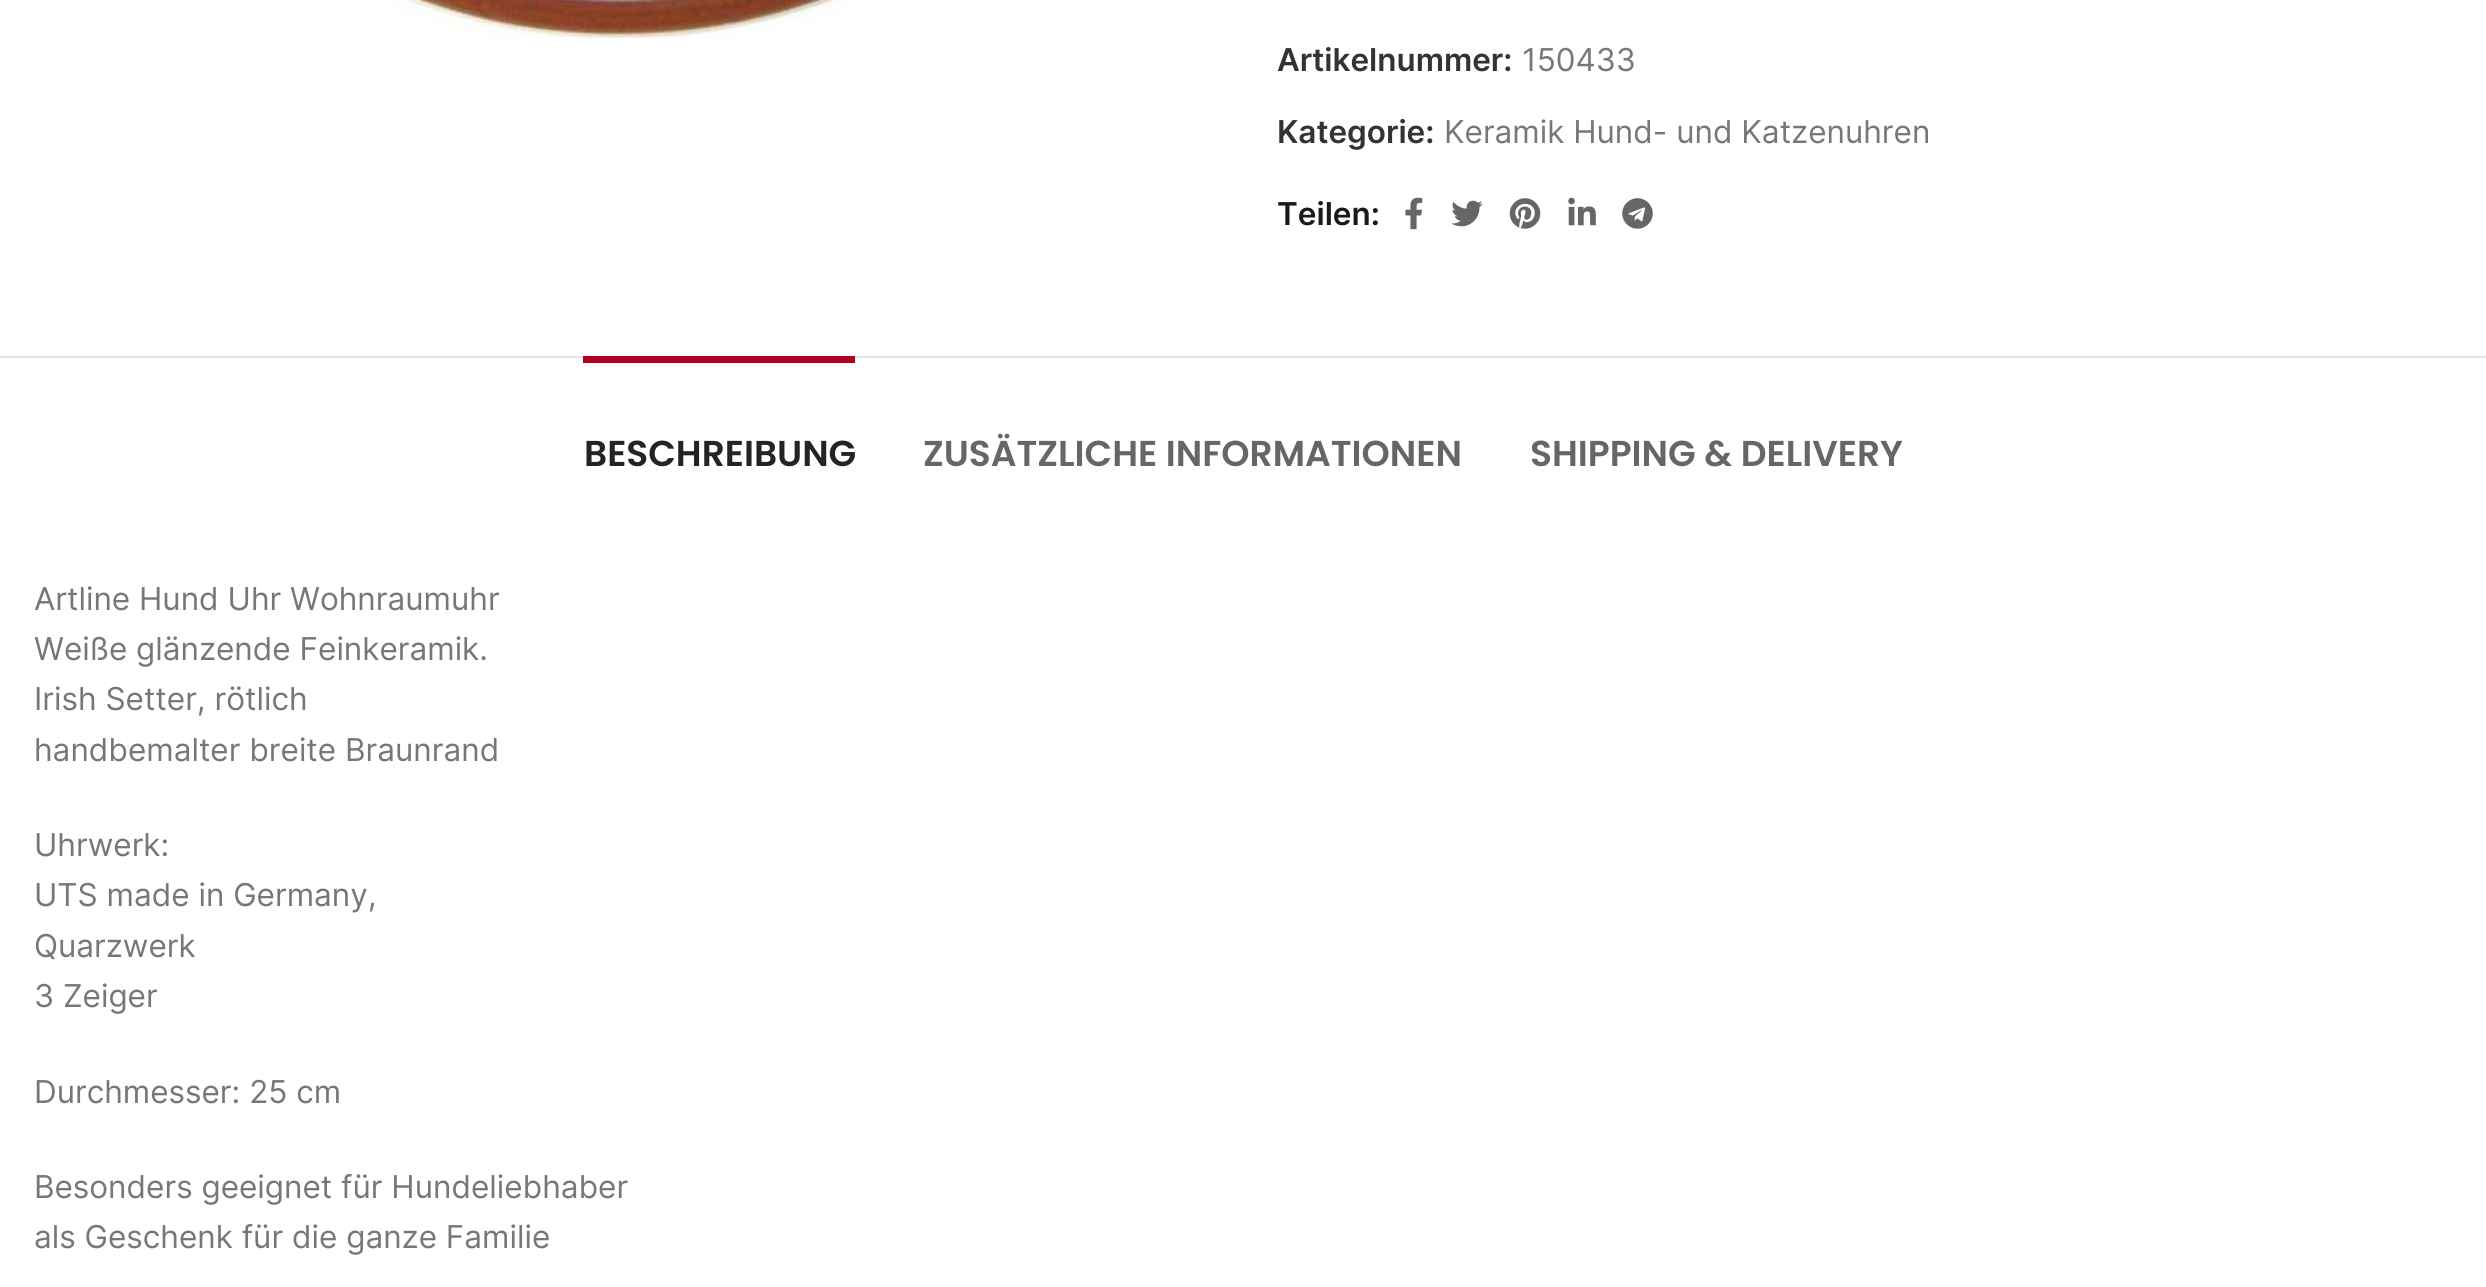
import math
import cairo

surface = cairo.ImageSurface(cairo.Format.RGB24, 2486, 1287)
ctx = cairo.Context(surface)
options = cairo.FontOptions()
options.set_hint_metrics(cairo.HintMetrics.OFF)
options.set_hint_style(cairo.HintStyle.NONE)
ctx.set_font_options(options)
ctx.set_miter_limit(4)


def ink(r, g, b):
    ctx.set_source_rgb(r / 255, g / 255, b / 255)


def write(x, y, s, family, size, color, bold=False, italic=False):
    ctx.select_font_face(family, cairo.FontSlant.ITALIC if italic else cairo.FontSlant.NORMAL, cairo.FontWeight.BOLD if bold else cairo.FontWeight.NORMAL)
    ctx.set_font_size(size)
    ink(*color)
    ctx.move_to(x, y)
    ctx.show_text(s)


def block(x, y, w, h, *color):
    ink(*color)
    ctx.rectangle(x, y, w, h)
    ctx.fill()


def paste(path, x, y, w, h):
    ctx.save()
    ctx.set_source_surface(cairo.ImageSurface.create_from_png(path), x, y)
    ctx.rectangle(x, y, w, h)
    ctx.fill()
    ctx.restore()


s1 = dict(family="Inter SemiBold", size=31.5, color=(51, 51, 51))
s2 = dict(family="Inter", size=31.5, color=(119, 119, 119))
s3 = dict(family="Inter SemiBold", size=31.5, color=(27, 25, 25))
s4 = dict(family="Poppins SemiBold", size=36, color=(36, 36, 36))
s5 = dict(family="Poppins SemiBold", size=36, color=(102, 102, 102))

ink(255, 255, 255)
ctx.paint()
paste("pic1.png", 386, 0, 466, 38)
write(1277, 71, "Artikelnummer:", **s1)
write(1522, 71, "150433", **s2)
write(1277, 143, "Kategorie:", **s1)
write(1444, 143, "Keramik Hund- und Katzenuhren", **s2)
write(1277, 225, "Teilen:", **s3)
paste("pic2.png", 1405, 197, 18, 33)
paste("pic3.png", 1451, 200, 32, 27)
paste("pic4.png", 1509, 198, 32, 31)
paste("pic5.png", 1568, 197, 28, 29)
paste("pic6.png", 1622, 198, 31, 31)
block(0, 356, 2486, 2, 228, 228, 228)
block(583, 356, 272, 7, 174, 0, 35)
write(584, 466, "BESCHREIBUNG", **s4)
write(923, 466, "ZUSÄTZLICHE INFORMATIONEN", **s5)
write(1530, 466, "SHIPPING & DELIVERY", **s5)
write(34, 610, "Artline Hund Uhr Wohnraumuhr", **s2)
write(34, 660, "Weiße glänzende Feinkeramik.", **s2)
write(34, 710, "Irish Setter, rötlich", **s2)
write(34, 761, "handbemalter breite Braunrand", **s2)
write(34, 856, "Uhrwerk:", **s2)
write(34, 906, "UTS made in Germany,", **s2)
write(34, 957, "Quarzwerk", **s2)
write(34, 1007, "3 Zeiger", **s2)
write(34, 1103, "Durchmesser: 25 cm", **s2)
write(34, 1198, "Besonders geeignet für Hundeliebhaber", **s2)
write(34, 1248, "als Geschenk für die ganze Familie", **s2)
surface.write_to_png("screenshot.png")
